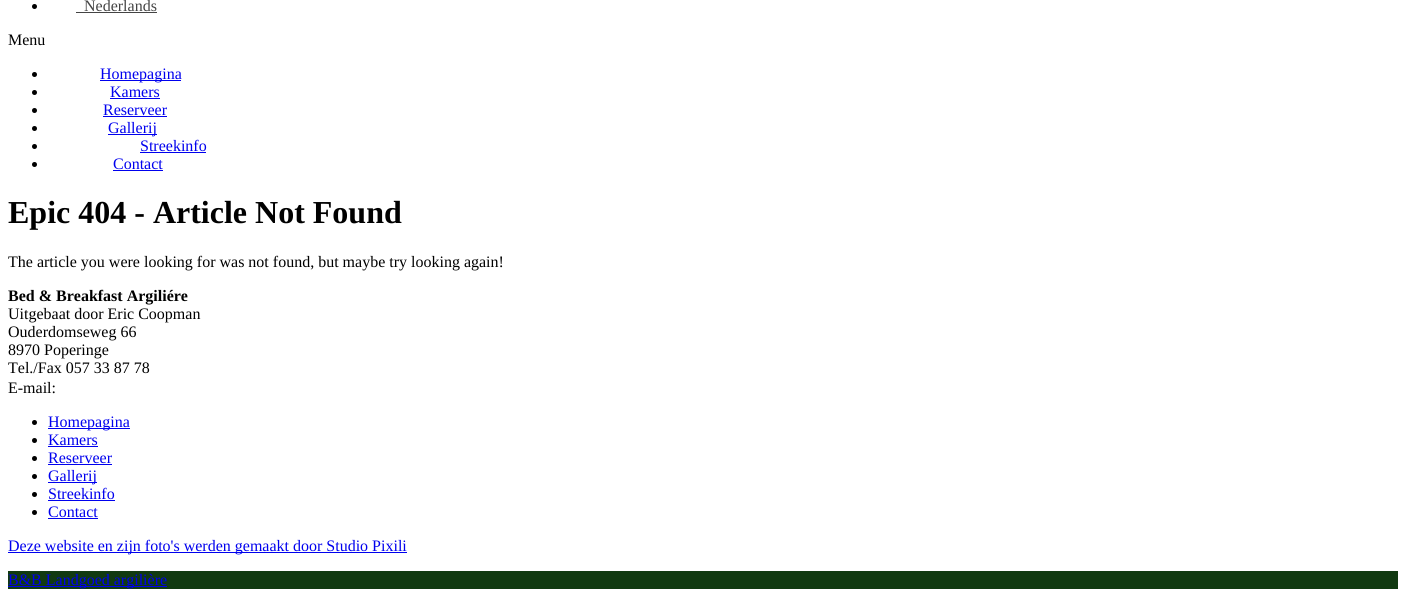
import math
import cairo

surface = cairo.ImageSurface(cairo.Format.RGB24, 1406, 614)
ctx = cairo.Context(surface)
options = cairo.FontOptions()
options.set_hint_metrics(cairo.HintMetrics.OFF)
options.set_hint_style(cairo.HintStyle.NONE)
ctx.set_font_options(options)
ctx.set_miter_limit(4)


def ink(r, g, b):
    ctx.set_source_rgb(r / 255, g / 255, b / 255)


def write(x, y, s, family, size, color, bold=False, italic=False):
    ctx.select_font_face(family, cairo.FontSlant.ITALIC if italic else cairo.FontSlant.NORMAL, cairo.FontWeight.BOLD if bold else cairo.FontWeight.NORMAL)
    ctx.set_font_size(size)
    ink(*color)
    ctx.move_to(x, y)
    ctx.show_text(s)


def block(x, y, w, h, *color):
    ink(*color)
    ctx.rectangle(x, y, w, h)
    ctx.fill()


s1 = dict(family="Liberation Serif", size=16, color=(68, 68, 68))
s2 = dict(family="Liberation Serif", size=16, color=(0, 0, 0))
s3 = dict(family="Liberation Serif", size=16, color=(0, 0, 238))
s4 = dict(family="Liberation Serif", size=32, color=(0, 0, 0), bold=True)
s5 = dict(family="Liberation Serif", size=16, color=(0, 0, 0), bold=True)

ink(255, 255, 255)
ctx.paint()
ink(0, 0, 0)
ctx.arc(34.5, 6.5, 2.5, 0, 2 * math.pi)
ctx.fill()
write(84, 11, "Nederlands", **s1)
block(76, 12, 81, 1, 68, 68, 68)
write(8, 45, "Menu", **s2)
ctx.new_path()
ctx.arc(34.5, 74.5, 2.5, 0, 2 * math.pi)
ctx.fill()
block(100, 80, 81, 1, 0, 0, 238)
write(100, 79, "Homepagina", **s3)
ink(0, 0, 0)
ctx.new_path()
ctx.arc(34.5, 92.5, 2.5, 0, 2 * math.pi)
ctx.fill()
write(110, 97, "Kamers", **s3)
block(110, 98, 50, 1, 0, 0, 238)
ink(0, 0, 0)
ctx.new_path()
ctx.arc(34.5, 110.5, 2.5, 0, 2 * math.pi)
ctx.fill()
write(103, 115, "Reserveer", **s3)
block(103, 116, 64, 1, 0, 0, 238)
ink(0, 0, 0)
ctx.new_path()
ctx.arc(34.5, 128.5, 2.5, 0, 2 * math.pi)
ctx.fill()
block(108, 134, 49, 1, 0, 0, 238)
write(108, 133, "Gallerij", **s3)
ink(0, 0, 0)
ctx.new_path()
ctx.arc(34.5, 146.5, 2.5, 0, 2 * math.pi)
ctx.fill()
write(140, 151, "Streekinfo", **s3)
block(140, 152, 66, 1, 0, 0, 238)
ink(0, 0, 0)
ctx.new_path()
ctx.arc(34.5, 164.5, 2.5, 0, 2 * math.pi)
ctx.fill()
write(113, 169, "Contact", **s3)
block(113, 170, 50, 1, 0, 0, 238)
write(8, 223, "Epic 404 - Article Not Found", **s4)
write(8, 267, "The article you were looking for was not found, but maybe try looking again!", **s2)
write(8, 301, "Bed & Breakfast Argiliére", **s5)
write(8, 319, "Uitgebaat door Eric Coopman", **s2)
write(8, 337, "Ouderdomseweg 66", **s2)
write(8, 355, "8970 Poperinge", **s2)
write(8, 373, "Tel./Fax 057 33 87 78", **s2)
write(8, 393, "E-mail:", **s2)
ctx.new_path()
ctx.arc(34.5, 422.5, 2.5, 0, 2 * math.pi)
ctx.fill()
block(48, 428, 82, 1, 0, 0, 238)
write(48, 427, "Homepagina", **s3)
ink(0, 0, 0)
ctx.new_path()
ctx.arc(34.5, 440.5, 2.5, 0, 2 * math.pi)
ctx.fill()
write(48, 445, "Kamers", **s3)
block(48, 446, 50, 1, 0, 0, 238)
ink(0, 0, 0)
ctx.new_path()
ctx.arc(34.5, 458.5, 2.5, 0, 2 * math.pi)
ctx.fill()
write(48, 463, "Reserveer", **s3)
block(48, 464, 64, 1, 0, 0, 238)
ink(0, 0, 0)
ctx.new_path()
ctx.arc(34.5, 476.5, 2.5, 0, 2 * math.pi)
ctx.fill()
block(48, 482, 49, 1, 0, 0, 238)
write(48, 481, "Gallerij", **s3)
ink(0, 0, 0)
ctx.new_path()
ctx.arc(34.5, 494.5, 2.5, 0, 2 * math.pi)
ctx.fill()
write(48, 499, "Streekinfo", **s3)
block(48, 500, 67, 1, 0, 0, 238)
ink(0, 0, 0)
ctx.new_path()
ctx.arc(34.5, 512.5, 2.5, 0, 2 * math.pi)
ctx.fill()
write(48, 517, "Contact", **s3)
block(48, 518, 50, 1, 0, 0, 238)
block(8, 552, 399, 1, 0, 0, 238)
write(8, 551, "Deze website en zijn foto's werden gemaakt door Studio Pixili", **s3)
block(8, 571, 1390, 18, 17, 58, 17)
block(8, 586, 159, 1, 0, 0, 238)
write(8, 585, "B&B Landgoed argilière", **s3)
surface.write_to_png("screenshot.png")
